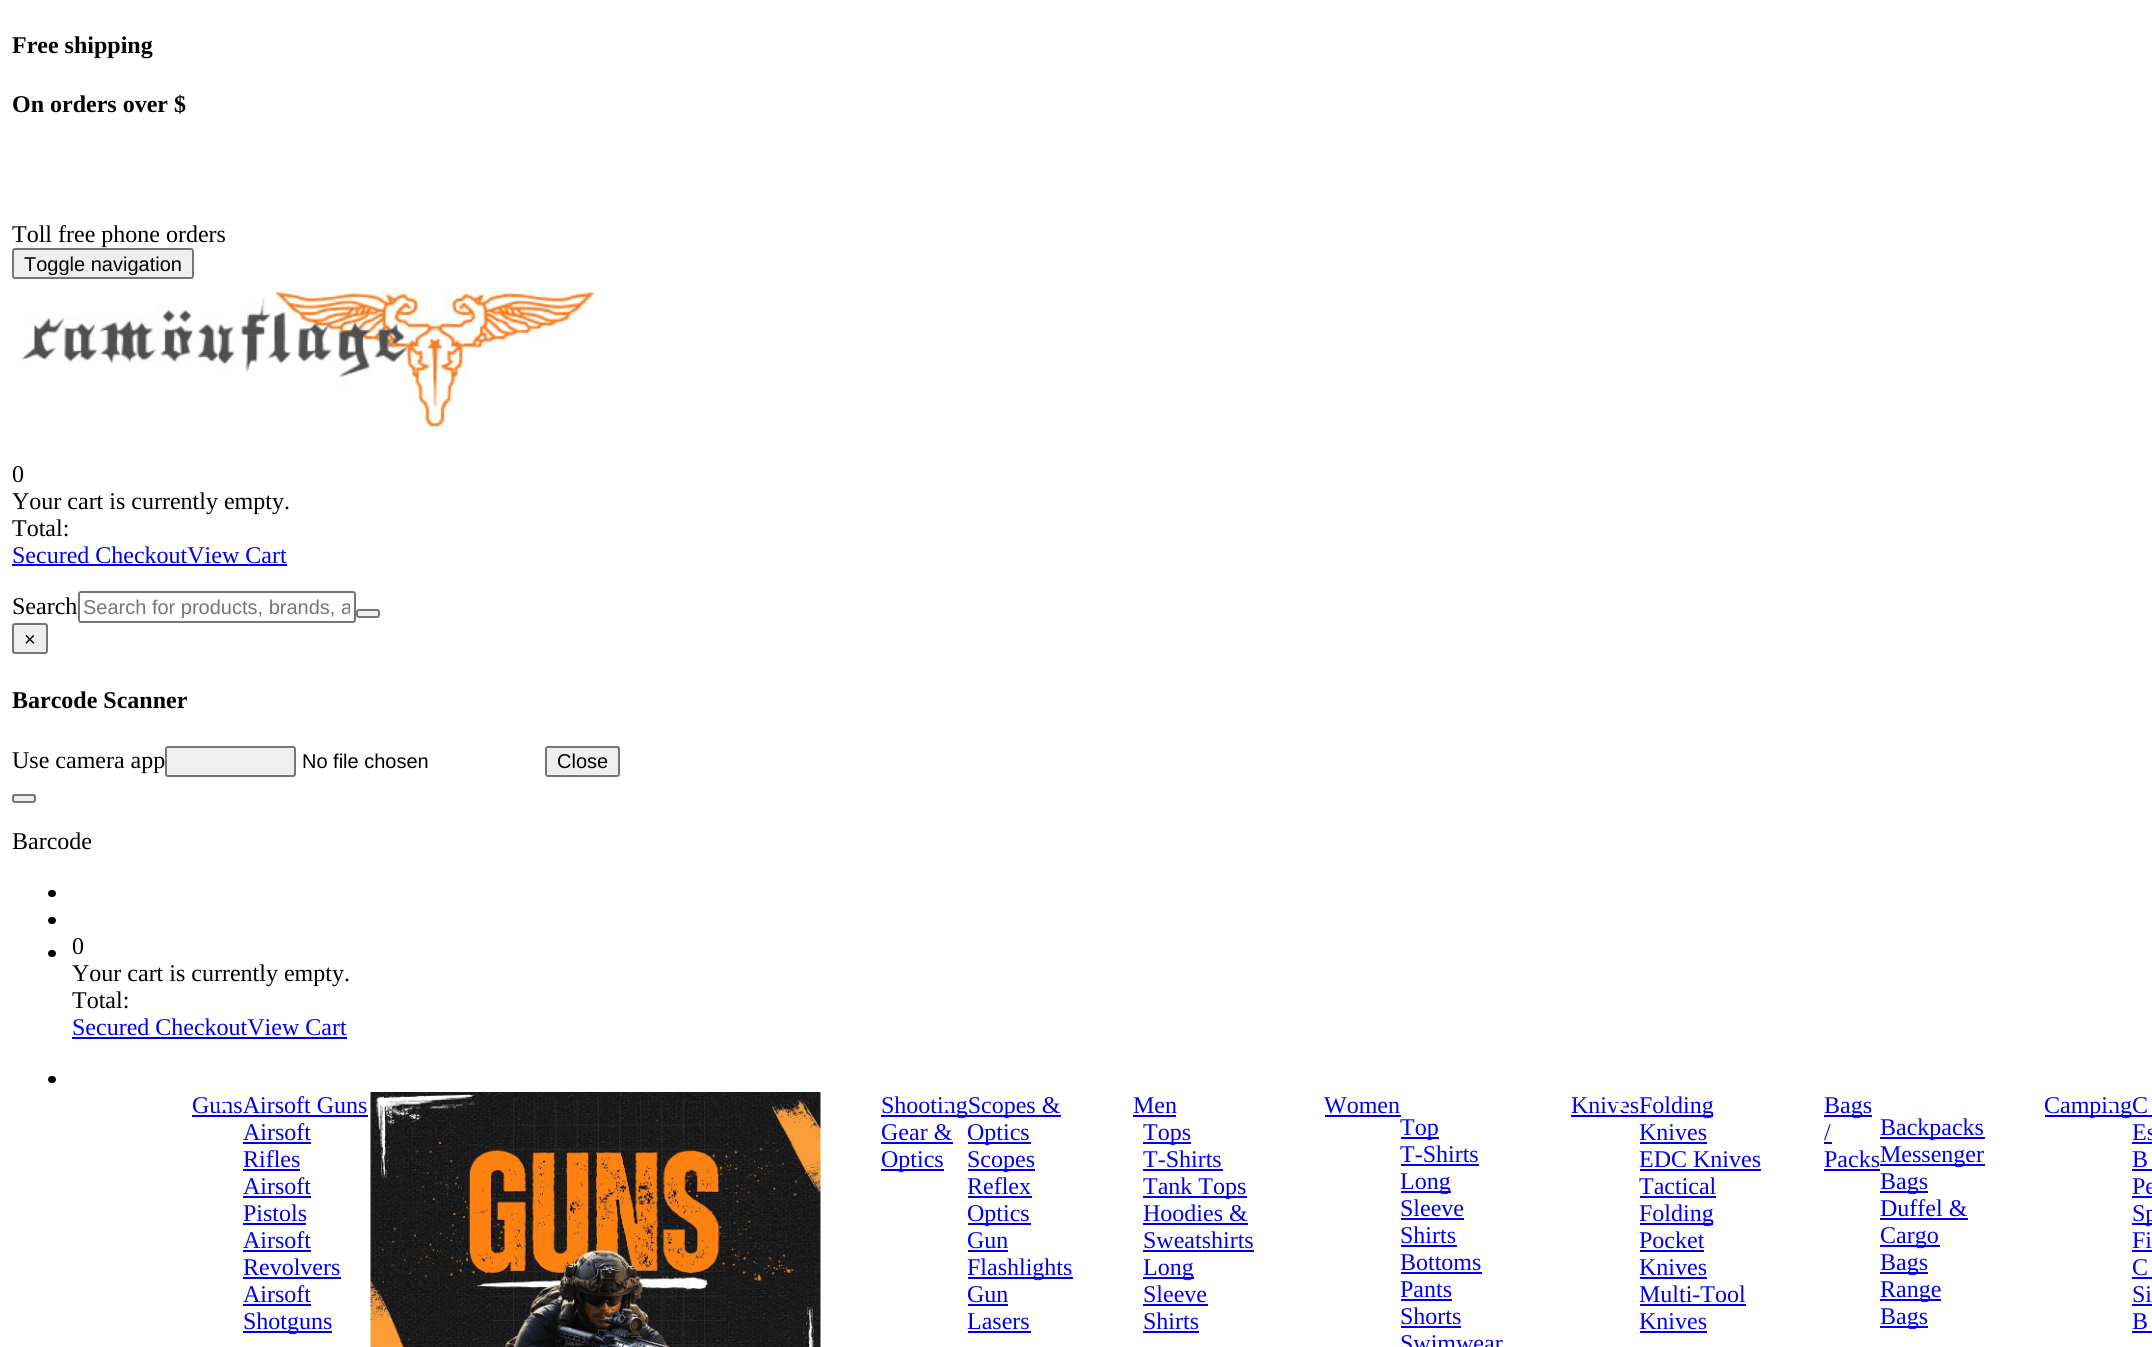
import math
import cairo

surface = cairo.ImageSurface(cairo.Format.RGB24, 2152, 1347)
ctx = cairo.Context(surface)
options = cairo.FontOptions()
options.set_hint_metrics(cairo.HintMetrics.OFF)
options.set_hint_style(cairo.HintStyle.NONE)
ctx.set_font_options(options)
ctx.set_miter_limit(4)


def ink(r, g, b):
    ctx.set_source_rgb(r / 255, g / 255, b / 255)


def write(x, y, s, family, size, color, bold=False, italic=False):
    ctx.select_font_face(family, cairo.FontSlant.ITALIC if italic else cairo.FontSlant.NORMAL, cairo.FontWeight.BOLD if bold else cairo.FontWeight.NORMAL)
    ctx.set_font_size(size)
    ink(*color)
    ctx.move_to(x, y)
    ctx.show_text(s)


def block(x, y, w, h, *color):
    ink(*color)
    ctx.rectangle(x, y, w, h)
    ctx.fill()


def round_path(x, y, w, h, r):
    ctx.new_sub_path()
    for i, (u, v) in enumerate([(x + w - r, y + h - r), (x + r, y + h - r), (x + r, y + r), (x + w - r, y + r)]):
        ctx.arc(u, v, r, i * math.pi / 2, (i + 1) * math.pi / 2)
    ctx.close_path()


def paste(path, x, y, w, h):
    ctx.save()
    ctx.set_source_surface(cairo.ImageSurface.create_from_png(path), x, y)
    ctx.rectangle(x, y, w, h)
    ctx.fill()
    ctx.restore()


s1 = dict(family="Liberation Serif", size=24, color=(0, 0, 0), bold=True)
s2 = dict(family="Liberation Serif", size=24, color=(0, 0, 0))
s3 = dict(family="Liberation Sans", size=20, color=(0, 0, 0))
s4 = dict(family="Liberation Serif", size=24, color=(0, 0, 238))
s5 = dict(family="Liberation Sans", size=20, color=(117, 117, 117))

ink(255, 255, 255)
ctx.paint()
write(12, 53, "Free shipping", **s1)
write(12, 112, "On orders over $", **s1)
write(12, 242, "Toll free phone orders", **s2)
ink(239, 239, 239)
round_path(13, 249, 180, 29, 2)
ctx.fill_preserve()
ink(118, 118, 118)
ctx.stroke()
write(24, 271, "Toggle navigation", **s3)
paste("pic1.png", 21, 291, 577, 140)
write(12, 482, "0", **s2)
write(12, 509, "Your cart is currently empty.", **s2)
write(12, 536, "Total:", **s2)
write(12, 563, "Secured CheckoutView Cart", **s4)
block(12, 564, 275, 2, 0, 0, 238)
write(12, 614, "Search", **s2)
round_path(79, 592, 276, 30, 2)
ink(118, 118, 118)
ctx.stroke()
ctx.save()
ctx.rectangle(84, 596, 266, 22)
ctx.clip()
write(83, 614, "Search for products, brands, a", **s5)
ctx.restore()
ink(239, 239, 239)
round_path(357, 610, 22, 7, 2)
ctx.fill_preserve()
ink(118, 118, 118)
ctx.stroke()
ink(239, 239, 239)
round_path(13, 624, 34, 29, 2)
ctx.fill_preserve()
ink(118, 118, 118)
ctx.stroke()
write(24, 646, "×", **s3)
write(12, 708, "Barcode Scanner", **s1)
write(12, 768, "Use camera app", **s2)
ink(239, 239, 239)
round_path(166, 747, 129, 29, 2)
ctx.fill_preserve()
ink(118, 118, 118)
ctx.stroke()
write(302, 768, "No file chosen", **s3)
ink(239, 239, 239)
round_path(546, 747, 73, 29, 2)
ctx.fill_preserve()
ink(118, 118, 118)
ctx.stroke()
write(557, 768, "Close", **s3)
ink(239, 239, 239)
round_path(13, 795, 22, 7, 2)
ctx.fill_preserve()
ink(118, 118, 118)
ctx.stroke()
write(12, 849, "Barcode", **s2)
round_path(48, 890, 8, 7, 3.5)
ctx.fill()
round_path(48, 917, 8, 7, 3.5)
ctx.fill()
round_path(48, 950, 8, 7, 3.5)
ctx.fill()
write(72, 954, "0", **s2)
write(72, 981, "Your cart is currently empty.", **s2)
write(72, 1008, "Total:", **s2)
write(72, 1035, "Secured CheckoutView Cart", **s4)
block(72, 1037, 275, 2, 0, 0, 238)
ink(0, 0, 0)
round_path(48, 1076, 8, 7, 3.5)
ctx.fill()
write(192, 1113, "GunsAirsoft Guns", **s4)
block(192, 1115, 176, 2, 0, 0, 238)
block(219, 1103, 8, 7, 255, 255, 255)
write(243, 1140, "Airsoft", **s4)
block(243, 1142, 68, 2, 0, 0, 238)
write(243, 1167, "Rifles", **s4)
block(243, 1169, 57, 2, 0, 0, 238)
write(243, 1194, "Airsoft", **s4)
block(243, 1196, 68, 2, 0, 0, 238)
write(243, 1221, "Pistols", **s4)
block(243, 1223, 63, 2, 0, 0, 238)
write(243, 1248, "Airsoft", **s4)
block(243, 1250, 68, 2, 0, 0, 238)
write(243, 1275, "Revolvers", **s4)
block(243, 1277, 98, 2, 0, 0, 238)
write(243, 1302, "Airsoft", **s4)
block(243, 1304, 68, 2, 0, 0, 238)
block(243, 1331, 89, 2, 0, 0, 238)
write(243, 1329, "Shotguns", **s4)
paste("pic2.png", 370, 1092, 451, 255)
block(881, 1115, 180, 2, 0, 0, 238)
write(881, 1113, "ShootingScopes &", **s4)
write(881, 1140, "Gear &", **s4)
block(881, 1142, 72, 2, 0, 0, 238)
block(881, 1169, 63, 2, 0, 0, 238)
write(881, 1167, "Optics", **s4)
block(944, 1103, 7, 7, 255, 255, 255)
block(968, 1142, 63, 2, 0, 0, 238)
write(967, 1140, "Optics", **s4)
block(968, 1169, 67, 2, 0, 0, 238)
write(967, 1167, "Scopes", **s4)
write(967, 1194, "Reflex", **s4)
block(968, 1196, 64, 2, 0, 0, 238)
block(968, 1223, 63, 2, 0, 0, 238)
write(967, 1221, "Optics", **s4)
write(967, 1248, "Gun", **s4)
block(968, 1250, 40, 2, 0, 0, 238)
block(968, 1277, 105, 2, 0, 0, 238)
write(967, 1275, "Flashlights", **s4)
write(967, 1302, "Gun", **s4)
block(968, 1304, 40, 2, 0, 0, 238)
write(967, 1329, "Lasers", **s4)
block(968, 1331, 63, 2, 0, 0, 238)
write(1133, 1113, "Men", **s4)
block(1133, 1115, 43, 2, 0, 0, 238)
block(1143, 1142, 48, 2, 0, 0, 238)
write(1143, 1140, "Tops", **s4)
write(1143, 1167, "T-Shirts", **s4)
block(1143, 1169, 80, 2, 0, 0, 238)
block(1143, 1196, 104, 2, 0, 0, 238)
write(1143, 1194, "Tank Tops", **s4)
write(1143, 1221, "Hoodies &", **s4)
block(1143, 1223, 105, 2, 0, 0, 238)
write(1143, 1248, "Sweatshirts", **s4)
block(1143, 1250, 111, 2, 0, 0, 238)
block(1143, 1277, 51, 2, 0, 0, 238)
write(1143, 1275, "Long", **s4)
write(1143, 1302, "Sleeve", **s4)
block(1143, 1304, 65, 2, 0, 0, 238)
write(1143, 1329, "Shirts", **s4)
block(1143, 1331, 56, 2, 0, 0, 238)
write(1324, 1113, "Women", **s4)
block(1325, 1115, 76, 2, 0, 0, 238)
block(1401, 1137, 38, 2, 0, 0, 238)
write(1400, 1135, "Top", **s4)
write(1400, 1162, "T-Shirts", **s4)
block(1401, 1164, 78, 2, 0, 0, 238)
block(1401, 1191, 50, 2, 0, 0, 238)
write(1400, 1189, "Long", **s4)
write(1400, 1216, "Sleeve", **s4)
block(1401, 1218, 63, 2, 0, 0, 238)
write(1400, 1243, "Shirts", **s4)
block(1401, 1245, 56, 2, 0, 0, 238)
write(1400, 1270, "Bottoms", **s4)
block(1401, 1272, 81, 2, 0, 0, 238)
write(1400, 1297, "Pants", **s4)
block(1401, 1299, 51, 2, 0, 0, 238)
write(1400, 1324, "Shorts", **s4)
block(1401, 1326, 60, 2, 0, 0, 238)
write(1400, 1351, "Swimwear", **s4)
block(1571, 1115, 142, 2, 0, 0, 238)
write(1571, 1113, "KnivesFolding", **s4)
block(1616, 1103, 7, 7, 255, 255, 255)
write(1639, 1140, "Knives", **s4)
block(1640, 1142, 67, 2, 0, 0, 238)
write(1639, 1167, "EDC Knives", **s4)
block(1640, 1169, 121, 2, 0, 0, 238)
write(1639, 1194, "Tactical", **s4)
block(1640, 1196, 76, 2, 0, 0, 238)
block(1640, 1223, 73, 2, 0, 0, 238)
write(1639, 1221, "Folding", **s4)
write(1639, 1248, "Pocket", **s4)
block(1640, 1250, 64, 2, 0, 0, 238)
write(1639, 1275, "Knives", **s4)
block(1640, 1277, 67, 2, 0, 0, 238)
write(1639, 1302, "Multi-Tool", **s4)
block(1640, 1304, 106, 2, 0, 0, 238)
write(1639, 1329, "Knives", **s4)
block(1640, 1331, 67, 2, 0, 0, 238)
block(1824, 1115, 48, 2, 0, 0, 238)
write(1824, 1113, "Bags", **s4)
write(1824, 1140, "/", **s4)
block(1824, 1142, 8, 2, 0, 0, 238)
write(1824, 1167, "Packs", **s4)
block(1824, 1169, 56, 2, 0, 0, 238)
block(1880, 1137, 105, 2, 0, 0, 238)
write(1880, 1135, "Backpacks", **s4)
block(1880, 1164, 105, 2, 0, 0, 238)
write(1880, 1162, "Messenger", **s4)
block(1880, 1191, 48, 2, 0, 0, 238)
write(1880, 1189, "Bags", **s4)
write(1880, 1216, "Duffel &", **s4)
block(1880, 1218, 88, 2, 0, 0, 238)
block(1880, 1245, 60, 2, 0, 0, 238)
write(1880, 1243, "Cargo", **s4)
block(1880, 1272, 48, 2, 0, 0, 238)
write(1880, 1270, "Bags", **s4)
block(1880, 1299, 61, 2, 0, 0, 238)
write(1880, 1297, "Range", **s4)
block(1880, 1326, 48, 2, 0, 0, 238)
write(1880, 1324, "Bags", **s4)
block(2045, 1115, 107, 2, 0, 0, 238)
write(2044, 1113, "CampingC", **s4)
block(2108, 1103, 7, 7, 255, 255, 255)
write(2132, 1140, "Es", **s4)
block(2132, 1142, 20, 2, 0, 0, 238)
write(2132, 1167, "B", **s4)
block(2132, 1169, 20, 2, 0, 0, 238)
write(2132, 1194, "Pe", **s4)
block(2132, 1196, 20, 2, 0, 0, 238)
block(2132, 1223, 20, 2, 0, 0, 238)
write(2132, 1221, "Sp", **s4)
write(2132, 1248, "Fi", **s4)
block(2132, 1250, 20, 2, 0, 0, 238)
write(2132, 1275, "C", **s4)
block(2132, 1277, 20, 2, 0, 0, 238)
write(2132, 1302, "Si", **s4)
block(2132, 1304, 20, 2, 0, 0, 238)
write(2132, 1329, "B", **s4)
block(2132, 1331, 20, 2, 0, 0, 238)
surface.write_to_png("screenshot.png")
